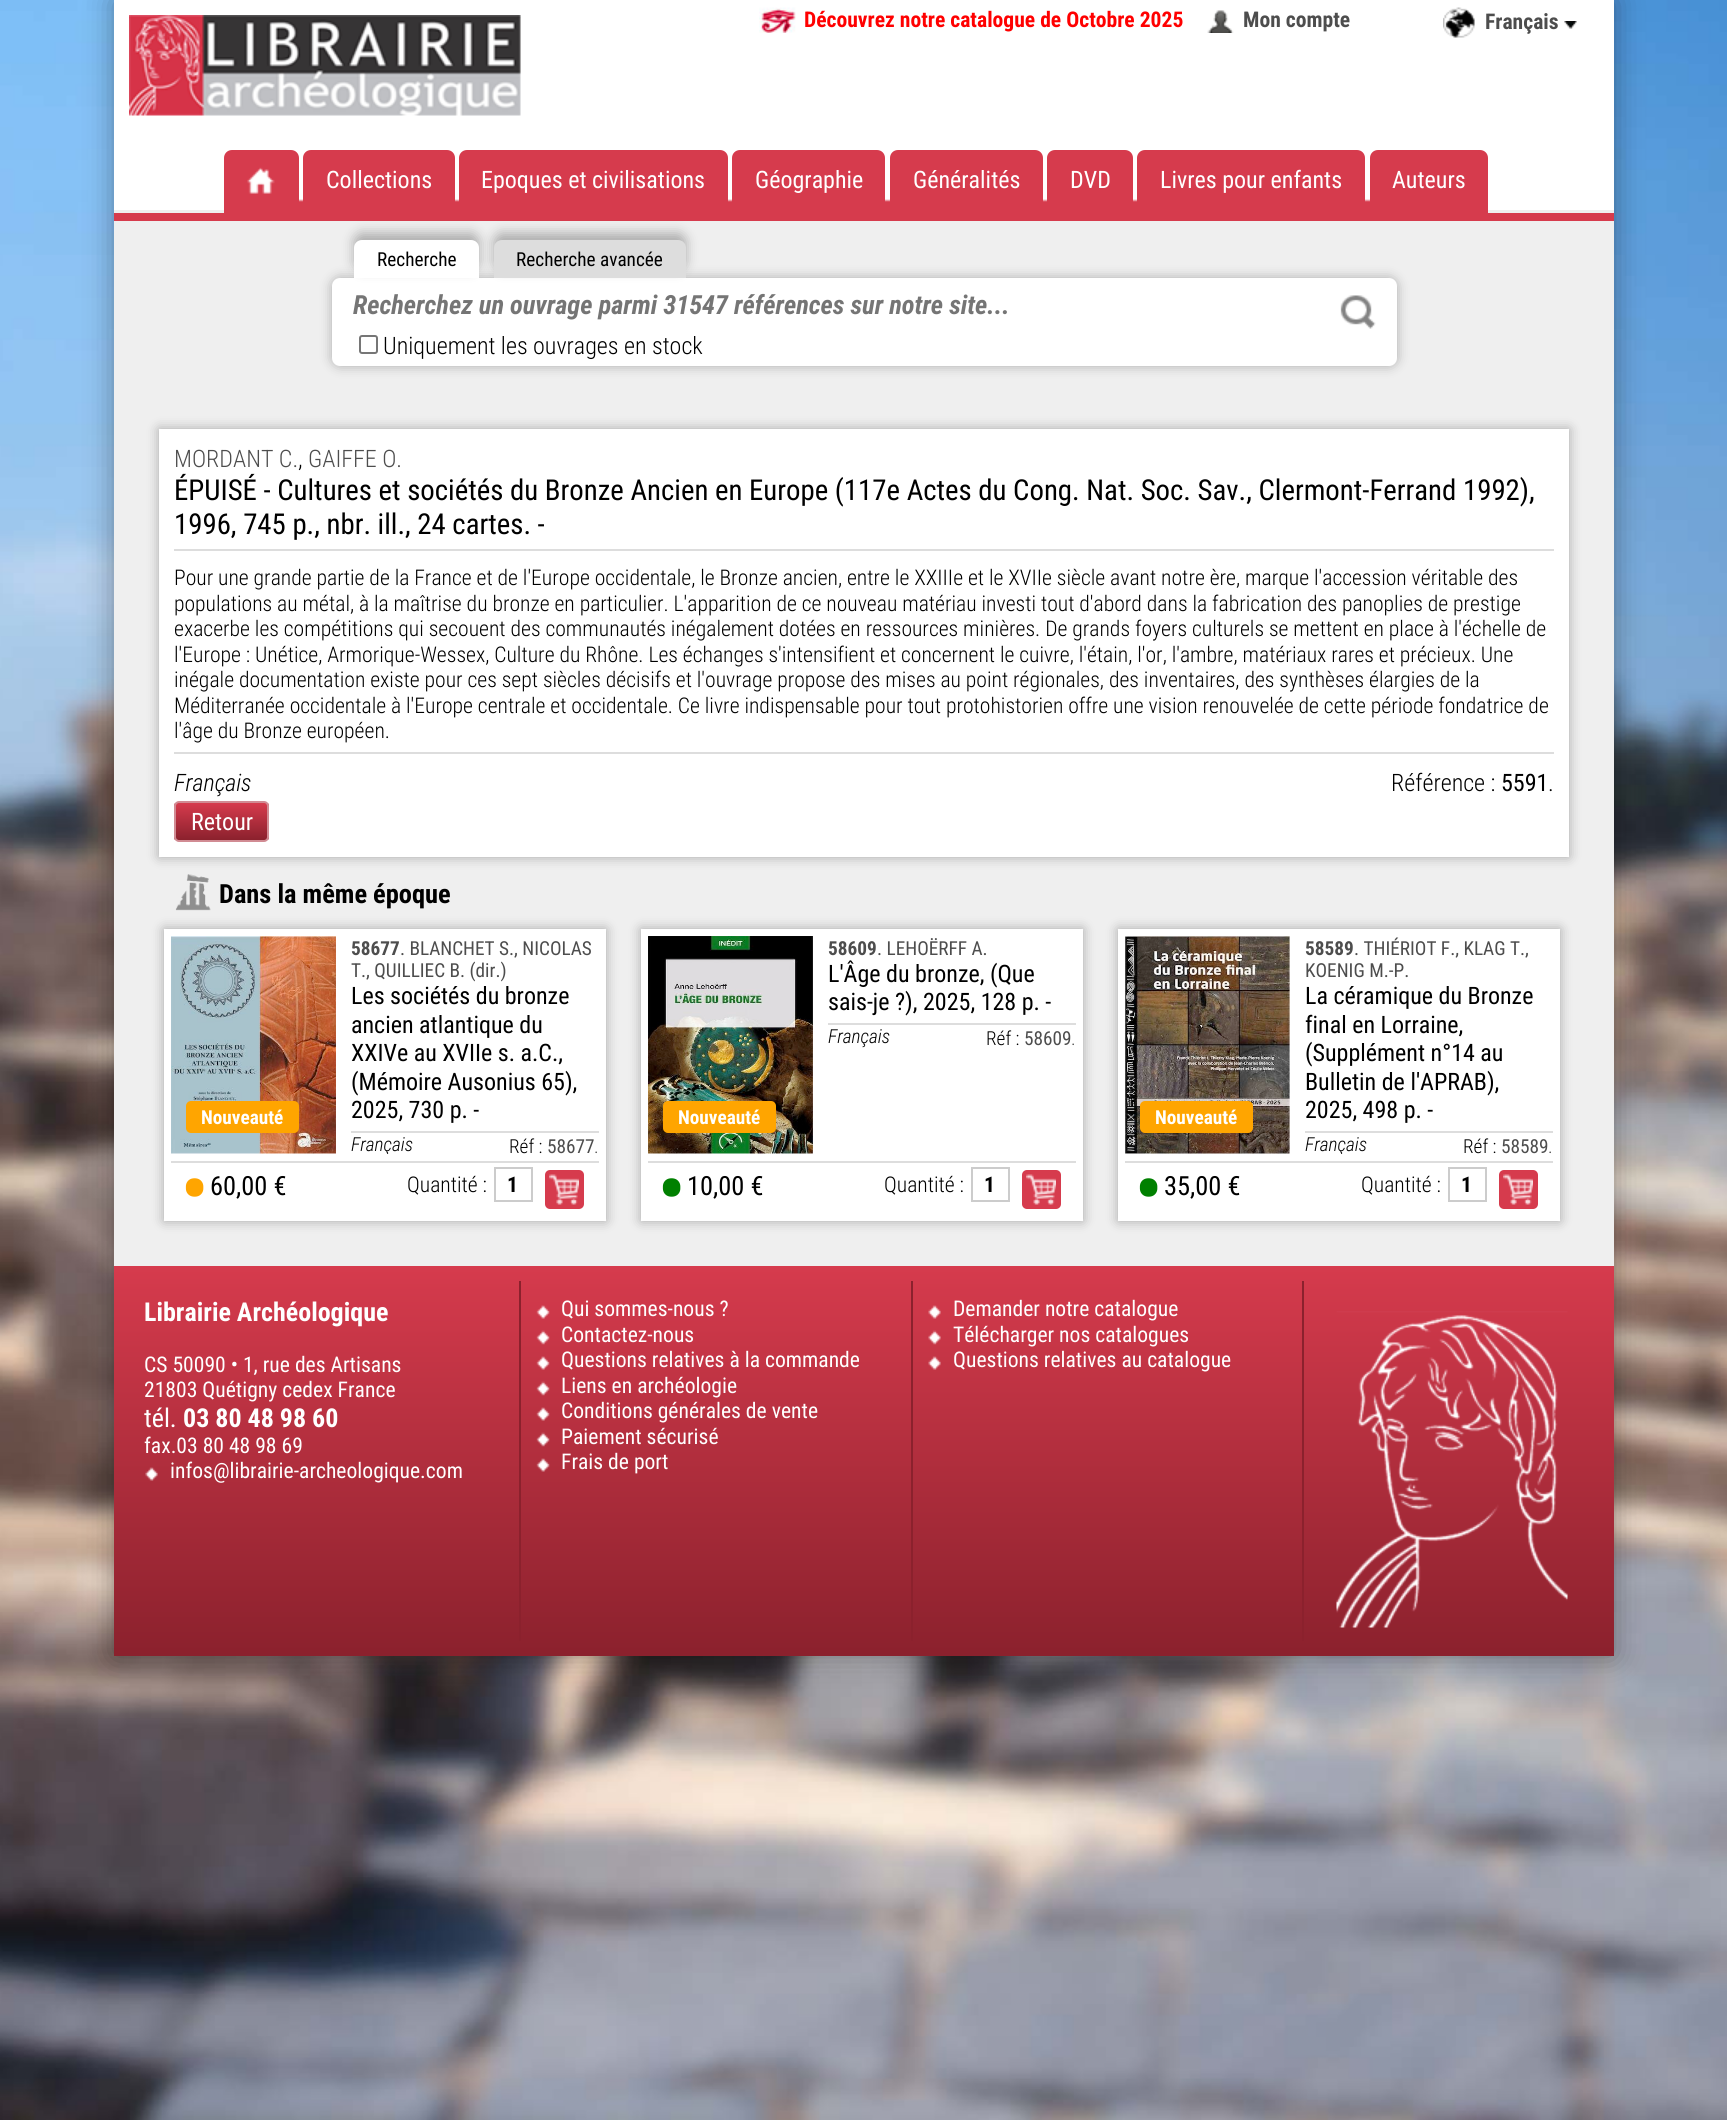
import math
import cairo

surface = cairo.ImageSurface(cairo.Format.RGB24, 1727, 2120)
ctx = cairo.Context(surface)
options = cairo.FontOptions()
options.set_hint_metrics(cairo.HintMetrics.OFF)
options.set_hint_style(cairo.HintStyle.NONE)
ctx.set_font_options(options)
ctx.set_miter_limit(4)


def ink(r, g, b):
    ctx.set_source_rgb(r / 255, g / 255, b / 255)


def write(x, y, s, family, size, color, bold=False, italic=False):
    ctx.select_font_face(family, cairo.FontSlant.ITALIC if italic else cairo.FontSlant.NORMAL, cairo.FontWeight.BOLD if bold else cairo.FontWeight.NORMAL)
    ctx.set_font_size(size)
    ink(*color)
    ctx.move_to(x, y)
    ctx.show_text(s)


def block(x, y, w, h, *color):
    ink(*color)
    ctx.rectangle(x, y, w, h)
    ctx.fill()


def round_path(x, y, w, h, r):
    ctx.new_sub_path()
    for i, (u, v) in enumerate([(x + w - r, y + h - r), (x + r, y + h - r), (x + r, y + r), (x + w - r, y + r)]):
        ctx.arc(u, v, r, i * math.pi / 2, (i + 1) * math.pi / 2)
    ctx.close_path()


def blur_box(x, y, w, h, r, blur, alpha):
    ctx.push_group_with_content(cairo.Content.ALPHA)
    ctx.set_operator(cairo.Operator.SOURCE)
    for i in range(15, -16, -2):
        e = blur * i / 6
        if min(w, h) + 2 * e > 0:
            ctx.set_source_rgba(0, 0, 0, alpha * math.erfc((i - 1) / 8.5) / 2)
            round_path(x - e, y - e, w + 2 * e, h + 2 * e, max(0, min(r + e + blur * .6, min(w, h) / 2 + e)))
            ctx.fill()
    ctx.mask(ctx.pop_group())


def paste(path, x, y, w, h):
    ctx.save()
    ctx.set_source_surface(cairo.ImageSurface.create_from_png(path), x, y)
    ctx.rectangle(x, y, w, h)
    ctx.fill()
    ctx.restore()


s1 = dict(family="Roboto Condensed", size=21.6, color=(255, 0, 0), bold=True)
s2 = dict(family="Roboto Condensed", size=21.6, color=(77, 77, 77), bold=True)
s3 = dict(family="Roboto Condensed", size=24, color=(255, 255, 255))
s4 = dict(family="Roboto Condensed", size=19.25, color=(0, 0, 0))
s5 = dict(family="Roboto Condensed", size=26.4, color=(117, 117, 117), bold=True, italic=True)
s6 = dict(family="Roboto Condensed Light", size=24, color=(0, 0, 0))
s7 = dict(family="Roboto Condensed Light", size=24, color=(77, 77, 77))
s8 = dict(family="Roboto Condensed", size=28.8, color=(0, 0, 0))
s9 = dict(family="Roboto Condensed Light", size=21.6, color=(0, 0, 0))
s10 = dict(family="Roboto Condensed Light", size=24, color=(0, 0, 0), italic=True)
s11 = dict(family="Roboto Condensed", size=24, color=(0, 0, 0))
s12 = dict(family="Roboto Condensed", size=26.4, color=(0, 0, 0), bold=True)
s13 = dict(family="Roboto Condensed", size=19.25, color=(255, 255, 255), bold=True)
s14 = dict(family="Roboto Condensed", size=19.25, color=(77, 77, 77), bold=True)
s15 = dict(family="Roboto Condensed", size=19.25, color=(77, 77, 77))
s16 = dict(family="Roboto Condensed Light", size=19.25, color=(0, 0, 0), italic=True)
s17 = dict(family="Roboto Condensed Light", size=19.25, color=(0, 0, 0))
s18 = dict(family="Roboto Condensed Light", size=19.25, color=(77, 77, 77))
s19 = dict(family="Roboto Condensed Light", size=96, color=(255, 165, 0))
s20 = dict(family="Roboto Condensed", size=26.4, color=(0, 0, 0))
s21 = dict(family="Roboto Condensed", size=21.6, color=(0, 0, 0), bold=True)
s22 = dict(family="Roboto Condensed Light", size=96, color=(0, 128, 0))
s23 = dict(family="Roboto Condensed", size=26, color=(255, 255, 255), bold=True)
s24 = dict(family="Roboto Condensed", size=21.6, color=(255, 255, 255))
s25 = dict(family="Roboto Condensed", size=26, color=(255, 255, 255))

ink(255, 255, 255)
ctx.paint()
paste("pic1.png", 0, 0, 1727, 2120)
ink(0, 0, 0)
blur_box(114, 0, 1500, 1656, 0, 15, 0.36)
block(114, 0, 1500, 210, 255, 255, 255)
paste("pic2.png", 129, 15, 392, 101)
paste("pic3.png", 759, 7, 37, 26)
write(804, 27, "Découvrez notre catalogue de Octobre 2025", **s1)
paste("pic4.png", 1207, 10, 27, 23)
write(1243, 27, "Mon compte", **s2)
block(114, 210, 1500, 1056, 239, 239, 239)
gradient = cairo.LinearGradient(856, 120, 856, 213)
gradient.add_color_stop_rgba(0, 1, 1, 1, 1)
gradient.add_color_stop_rgba(0.85, 1, 1, 1, 1)
gradient.add_color_stop_rgba(0.88, 0.839, 0.231, 0.302, 1)
ctx.set_source(gradient)
ctx.rectangle(224, 199, 1264, 14)
ctx.fill()
ink(214, 59, 77)
ctx.new_path()
ctx.move_to(232, 150)
ctx.line_to(291, 150)
ctx.curve_to(295.5, 150, 299, 153.5, 299, 158)
ctx.line_to(299, 213)
ctx.line_to(224, 213)
ctx.line_to(224, 158)
ctx.curve_to(224, 153.5, 227.5, 150, 232, 150)
ctx.close_path()
ctx.fill()
paste("pic5.png", 247, 167, 28, 27)
ctx.new_path()
ctx.move_to(311, 150)
ctx.line_to(447, 150)
ctx.curve_to(451.5, 150, 455, 153.5, 455, 158)
ctx.line_to(455, 213)
ctx.line_to(303, 213)
ctx.line_to(303, 158)
ctx.curve_to(303, 153.5, 306.5, 150, 311, 150)
ctx.close_path()
ctx.fill()
write(326, 188, "Collections", **s3)
ink(214, 59, 77)
ctx.new_path()
ctx.move_to(467, 150)
ctx.line_to(720, 150)
ctx.curve_to(724.5, 150, 728, 153.5, 728, 158)
ctx.line_to(728, 213)
ctx.line_to(459, 213)
ctx.line_to(459, 158)
ctx.curve_to(459, 153.5, 462.5, 150, 467, 150)
ctx.close_path()
ctx.fill()
write(481, 188, "Epoques et civilisations", **s3)
ink(214, 59, 77)
ctx.new_path()
ctx.move_to(740, 150)
ctx.line_to(877, 150)
ctx.curve_to(881.5, 150, 885, 153.5, 885, 158)
ctx.line_to(885, 213)
ctx.line_to(732, 213)
ctx.line_to(732, 158)
ctx.curve_to(732, 153.5, 735.5, 150, 740, 150)
ctx.close_path()
ctx.fill()
write(755, 188, "Géographie", **s3)
ink(214, 59, 77)
ctx.new_path()
ctx.move_to(898, 150)
ctx.line_to(1035, 150)
ctx.curve_to(1039.5, 150, 1043, 153.5, 1043, 158)
ctx.line_to(1043, 213)
ctx.line_to(890, 213)
ctx.line_to(890, 158)
ctx.curve_to(890, 153.5, 893.5, 150, 898, 150)
ctx.close_path()
ctx.fill()
write(913, 188, "Généralités", **s3)
ink(214, 59, 77)
ctx.new_path()
ctx.move_to(1055, 150)
ctx.line_to(1125, 150)
ctx.curve_to(1129.5, 150, 1133, 153.5, 1133, 158)
ctx.line_to(1133, 213)
ctx.line_to(1047, 213)
ctx.line_to(1047, 158)
ctx.curve_to(1047, 153.5, 1050.5, 150, 1055, 150)
ctx.close_path()
ctx.fill()
write(1070, 188, "DVD", **s3)
ink(214, 59, 77)
ctx.new_path()
ctx.move_to(1145, 150)
ctx.line_to(1357, 150)
ctx.curve_to(1361.5, 150, 1365, 153.5, 1365, 158)
ctx.line_to(1365, 213)
ctx.line_to(1137, 213)
ctx.line_to(1137, 158)
ctx.curve_to(1137, 153.5, 1140.5, 150, 1145, 150)
ctx.close_path()
ctx.fill()
write(1160, 188, "Livres pour enfants", **s3)
ink(214, 59, 77)
ctx.new_path()
ctx.move_to(1378, 150)
ctx.line_to(1480, 150)
ctx.curve_to(1484.5, 150, 1488, 153.5, 1488, 158)
ctx.line_to(1488, 213)
ctx.line_to(1370, 213)
ctx.line_to(1370, 158)
ctx.curve_to(1370, 153.5, 1373.5, 150, 1378, 150)
ctx.close_path()
ctx.fill()
write(1392, 188, "Auteurs", **s3)
ink(0, 0, 0)
blur_box(332, 278, 1065, 88, 8, 6, 0.28)
ink(255, 255, 255)
round_path(332, 278, 1065, 88, 8)
ctx.fill()
ink(0, 0, 0)
blur_box(354, 233, 125, 37, 8, 6, 0.28)
ink(255, 255, 255)
ctx.new_path()
ctx.move_to(362, 240)
ctx.line_to(471, 240)
ctx.curve_to(475.5, 240, 479, 243.5, 479, 248)
ctx.line_to(479, 278)
ctx.line_to(354, 278)
ctx.line_to(354, 248)
ctx.curve_to(354, 243.5, 357.5, 240, 362, 240)
ctx.close_path()
ctx.fill()
ink(0, 0, 0)
blur_box(494, 233, 192, 37, 8, 6, 0.28)
block(114, 213, 1500, 8, 214, 59, 77)
paste("pic6.png", 1443, 7, 134, 31)
write(1485, 29, "Français", **s2)
write(377, 266, "Recherche", **s4)
ink(221, 221, 221)
ctx.new_path()
ctx.move_to(502, 240)
ctx.line_to(678, 240)
ctx.curve_to(682.5, 240, 686, 243.5, 686, 248)
ctx.line_to(686, 278)
ctx.line_to(494, 278)
ctx.line_to(494, 248)
ctx.curve_to(494, 243.5, 497.5, 240, 502, 240)
ctx.close_path()
ctx.fill()
write(516, 266, "Recherche avancée", **s4)
write(353, 314, "Recherchez un ouvrage parmi 31547 références sur notre site...", **s5)
paste("pic7.png", 1340, 295, 36, 34)
round_path(360, 336, 17, 17, 2)
ink(118, 118, 118)
ctx.stroke()
write(383, 354, "Uniquement les ouvrages en stock", **s6)
paste("pic8.png", 175, 874, 36, 37)
ink(0, 0, 0)
blur_box(159, 429, 1410, 428, 0, 6, 0.3)
block(159, 429, 1410, 428, 255, 255, 255)
write(174, 467, "MORDANT C.", **s7)
write(298, 467, ",", **s6)
write(308, 467, "GAIFFE O.", **s7)
block(174, 549, 1380, 2, 221, 221, 221)
write(174, 500, "ÉPUISÉ - Cultures et sociétés du Bronze Ancien en Europe (117e Actes du Cong. Nat. Soc. Sav., Clermont-Ferrand 1992),", **s8)
write(174, 534, "1996, 745 p., nbr. ill., 24 cartes. -", **s8)
block(174, 752, 1380, 2, 221, 221, 221)
write(174, 585, "Pour une grande partie de la France et de l'Europe occidentale, le Bronze ancien, entre le XXIIIe et le XVIIe siècle avant notre ère, marque l'accession véritable des", **s9)
write(174, 611, "populations au métal, à la maîtrise du bronze en particulier. L'apparition de ce nouveau matériau investi tout d'abord dans la fabrication des panoplies de prestige", **s9)
write(174, 636, "exacerbe les compétitions qui secouent des communautés inégalement dotées en ressources minières. De grands foyers culturels se mettent en place à l'échelle de", **s9)
write(174, 662, "l'Europe : Unétice, Armorique-Wessex, Culture du Rhône. Les échanges s'intensifient et concernent le cuivre, l'étain, l'or, l'ambre, matériaux rares et précieux. Une", **s9)
write(174, 687, "inégale documentation existe pour ces sept siècles décisifs et l'ouvrage propose des mises au point régionales, des inventaires, des synthèses élargies de la", **s9)
write(174, 713, "Méditerranée occidentale à l'Europe centrale et occidentale. Ce livre indispensable pour tout protohistorien offre une vision renouvelée de cette période fondatrice de", **s9)
write(174, 738, "l'âge du Bronze européen.", **s9)
write(174, 791, "Français", **s10)
write(1391, 791, "Référence :", **s6)
write(1501, 791, "5591", **s11)
write(1548, 791, ".", **s6)
ctx.save()
round_path(174, 801, 95, 41, 5)
ctx.clip()
gradient = cairo.LinearGradient(221, 803, 221, 840)
gradient.add_color_stop_rgba(0, 0.839, 0.231, 0.302, 1)
gradient.add_color_stop_rgba(1, 0.545, 0.129, 0.176, 1)
ctx.set_source(gradient)
ctx.rectangle(174, 803, 95, 37)
ctx.fill()
ctx.restore()
round_path(175, 802, 93, 39, 4)
ink(209, 139, 147)
ctx.stroke()
write(191, 830, "Retour", **s3)
write(219, 903, "Dans la même époque", **s12)
ink(0, 0, 0)
blur_box(164, 929, 442, 292, 0, 6, 0.3)
block(164, 929, 442, 292, 255, 255, 255)
paste("pic9.png", 171, 936, 165, 218)
ink(255, 165, 0)
round_path(186, 1101, 113, 32, 5)
ctx.fill()
write(201, 1124, "Nouveauté", **s13)
write(351, 955, "58677", **s14)
write(400, 955, ". BLANCHET S., NICOLAS", **s15)
write(351, 977, "T., QUILLIEC B. (dir.)", **s15)
write(351, 1004, "Les sociétés du bronze", **s11)
write(351, 1033, "ancien atlantique du", **s11)
write(351, 1061, "XXIVe au XVIIe s. a.C.,", **s11)
write(351, 1090, "(Mémoire Ausonius 65),", **s11)
write(351, 1118, "2025, 730 p. -", **s11)
block(351, 1131, 248, 2, 221, 221, 221)
ctx.save()
ctx.rectangle(351, 936, 248, 218)
ctx.clip()
write(351, 1151, "Français", **s16)
ctx.restore()
write(509, 1153, "Réf :", **s17)
write(547, 1153, "58677", **s15)
write(594, 1153, ".", **s18)
block(171, 1161, 428, 2, 221, 221, 221)
write(179, 1222, "•", **s19)
write(210, 1195, "60,00 €", **s20)
write(407, 1192, "Quantité :", **s9)
ctx.rectangle(495, 1168, 37, 33)
ink(204, 204, 204)
ctx.stroke()
write(507, 1192, "1", **s21)
ink(214, 59, 77)
round_path(545, 1170, 39, 39, 5)
ctx.fill()
paste("pic10.png", 549, 1174, 30, 31)
ink(0, 0, 0)
blur_box(641, 929, 442, 292, 0, 6, 0.3)
block(641, 929, 442, 292, 255, 255, 255)
write(828, 955, "58609", **s14)
write(877, 955, ". LEHOËRFF A.", **s15)
write(828, 982, "L'Âge du bronze, (Que", **s11)
write(828, 1010, "sais-je ?), 2025, 128 p. -", **s11)
block(828, 1023, 248, 2, 221, 221, 221)
write(828, 1043, "Français", **s16)
write(986, 1045, "Réf :", **s17)
write(1024, 1045, "58609", **s15)
write(1071, 1045, ".", **s18)
paste("pic11.png", 648, 936, 165, 218)
ink(255, 165, 0)
round_path(663, 1101, 113, 32, 5)
ctx.fill()
write(678, 1124, "Nouveauté", **s13)
block(648, 1161, 428, 2, 221, 221, 221)
write(656, 1222, "•", **s22)
write(687, 1195, "10,00 €", **s20)
write(884, 1192, "Quantité :", **s9)
ctx.rectangle(972, 1168, 37, 33)
ink(204, 204, 204)
ctx.stroke()
write(984, 1192, "1", **s21)
ink(214, 59, 77)
round_path(1022, 1170, 39, 39, 5)
ctx.fill()
paste("pic12.png", 1026, 1174, 30, 31)
ink(0, 0, 0)
blur_box(1118, 929, 442, 292, 0, 6, 0.3)
block(1118, 929, 442, 292, 255, 255, 255)
paste("pic13.png", 1125, 936, 165, 218)
ink(255, 165, 0)
round_path(1140, 1101, 113, 32, 5)
ctx.fill()
write(1155, 1124, "Nouveauté", **s13)
write(1305, 955, "58589", **s14)
write(1354, 955, ". THIÉRIOT F., KLAG T.,", **s15)
write(1305, 977, "KOENIG M.-P.", **s15)
write(1305, 1004, "La céramique du Bronze", **s11)
write(1305, 1033, "final en Lorraine,", **s11)
write(1305, 1061, "(Supplément n°14 au", **s11)
write(1305, 1090, "Bulletin de l'APRAB),", **s11)
write(1305, 1118, "2025, 498 p. -", **s11)
block(1305, 1131, 248, 2, 221, 221, 221)
ctx.save()
ctx.rectangle(1305, 936, 248, 218)
ctx.clip()
write(1305, 1151, "Français", **s16)
ctx.restore()
write(1463, 1153, "Réf :", **s17)
write(1501, 1153, "58589", **s15)
write(1548, 1153, ".", **s18)
block(1125, 1161, 428, 2, 221, 221, 221)
write(1133, 1222, "•", **s22)
write(1164, 1195, "35,00 €", **s20)
write(1361, 1192, "Quantité :", **s9)
ctx.rectangle(1449, 1168, 37, 33)
ink(204, 204, 204)
ctx.stroke()
write(1461, 1192, "1", **s21)
ink(214, 59, 77)
round_path(1499, 1170, 39, 39, 5)
ctx.fill()
paste("pic14.png", 1503, 1174, 30, 31)
gradient = cairo.LinearGradient(864, 1266, 864, 1656)
gradient.add_color_stop_rgba(0, 0.839, 0.231, 0.302, 1)
gradient.add_color_stop_rgba(1, 0.545, 0.129, 0.176, 1)
ctx.set_source(gradient)
ctx.rectangle(114, 1266, 1500, 390)
ctx.fill()
block(519, 1281, 2, 360, 139, 33, 45)
write(144, 1321, "Librairie Archéologique", **s23)
write(144, 1372, "CS 50090 • 1, rue des Artisans", **s24)
write(144, 1397, "21803 Quétigny cedex France", **s24)
write(144, 1427, "tél.", **s25)
write(183, 1427, "03 80 48 98 60", **s23)
write(144, 1453, "fax.03 80 48 98 69", **s24)
paste("pic15.png", 145, 1467, 13, 14)
write(170, 1478, "infos@librairie-archeologique.com", **s24)
block(911, 1281, 2, 360, 139, 33, 45)
paste("pic16.png", 536, 1305, 14, 14)
write(561, 1316, "Qui sommes-nous ?", **s24)
paste("pic17.png", 536, 1330, 14, 15)
write(561, 1342, "Contactez-nous", **s24)
paste("pic18.png", 536, 1356, 14, 14)
write(561, 1367, "Questions relatives à la commande", **s24)
paste("pic19.png", 536, 1381, 14, 15)
write(561, 1393, "Liens en archéologie", **s24)
paste("pic20.png", 536, 1407, 14, 14)
write(561, 1418, "Conditions générales de vente", **s24)
paste("pic21.png", 536, 1432, 14, 15)
write(561, 1444, "Paiement sécurisé", **s24)
paste("pic22.png", 536, 1458, 14, 14)
write(561, 1469, "Frais de port", **s24)
block(1302, 1281, 2, 360, 139, 33, 45)
paste("pic23.png", 928, 1305, 13, 14)
write(953, 1316, "Demander notre catalogue", **s24)
paste("pic24.png", 928, 1330, 13, 15)
write(953, 1342, "Télécharger nos catalogues", **s24)
paste("pic25.png", 928, 1356, 13, 14)
write(953, 1367, "Questions relatives au catalogue", **s24)
paste("pic26.png", 1336, 1311, 232, 317)
surface.write_to_png("screenshot.png")
